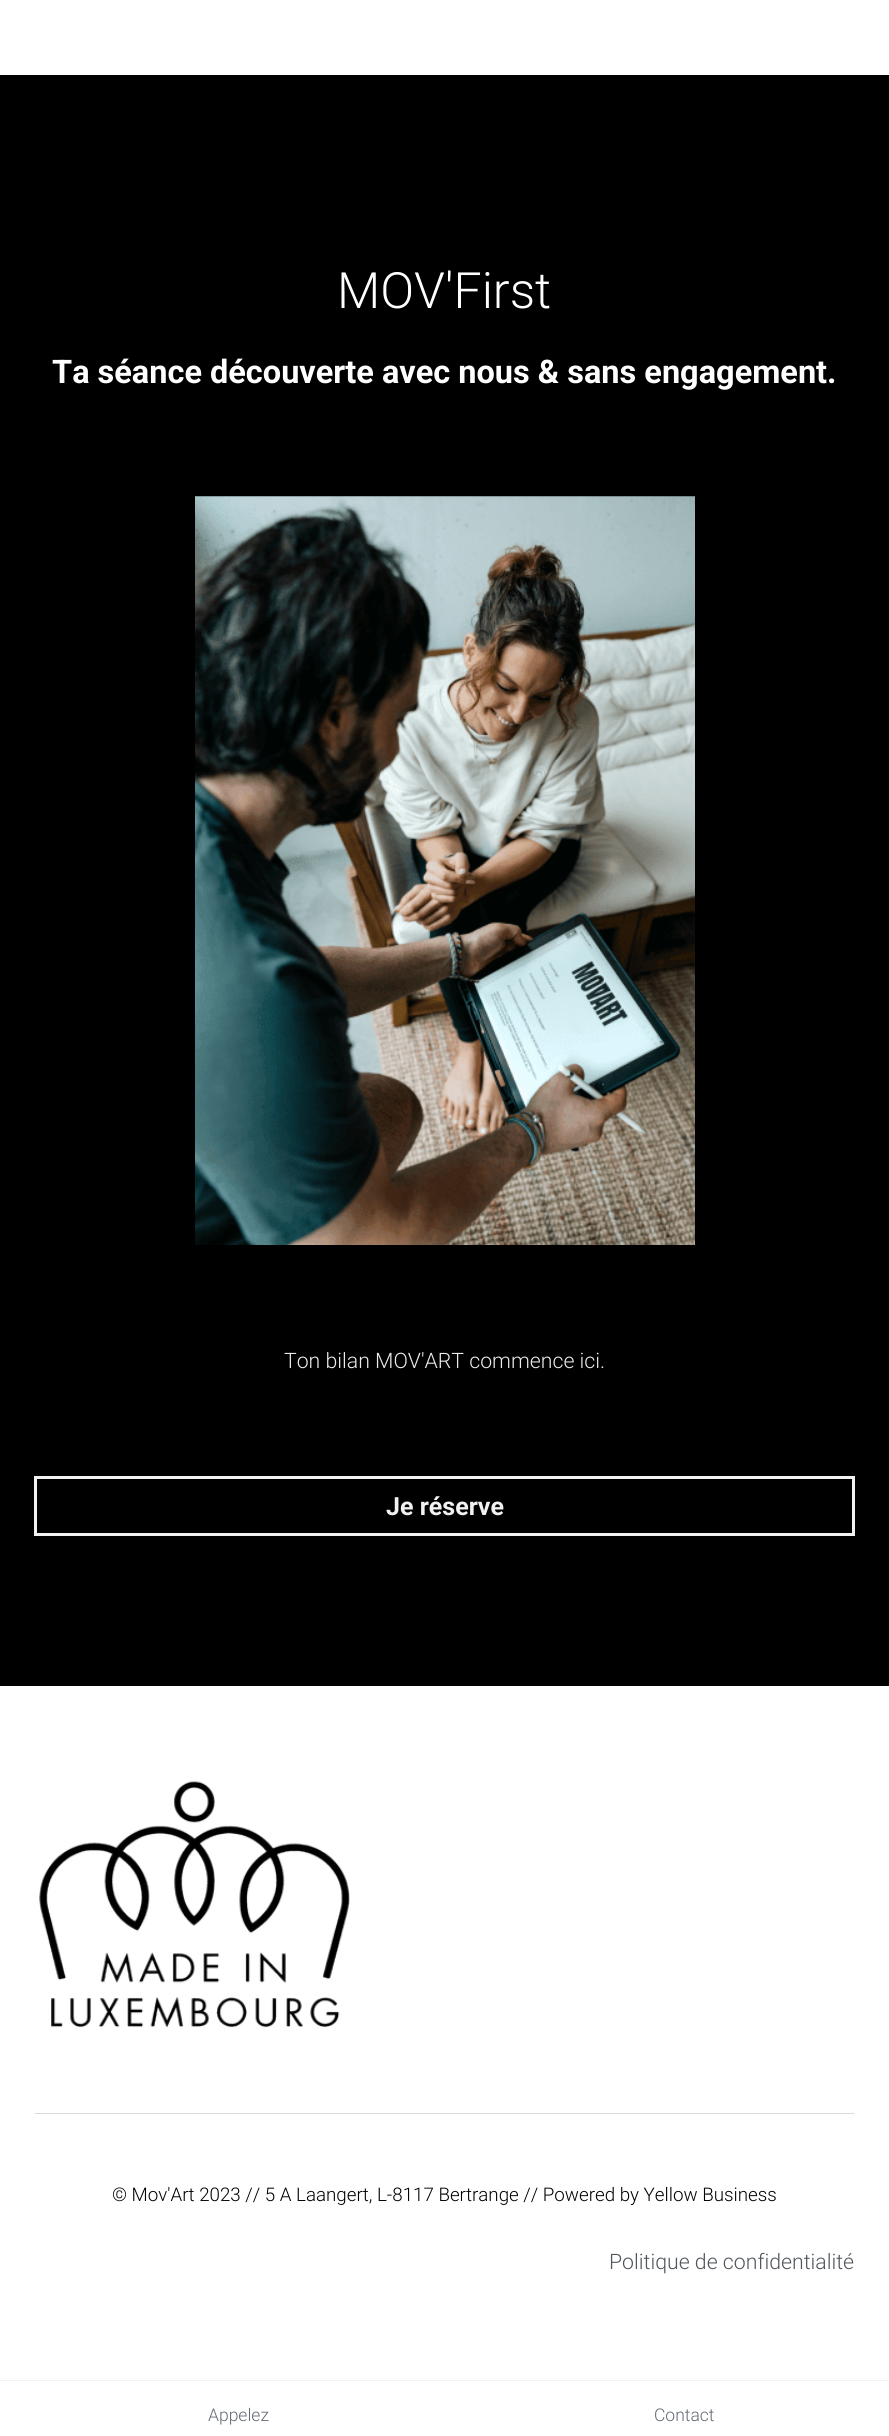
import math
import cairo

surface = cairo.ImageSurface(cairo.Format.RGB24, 889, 2436)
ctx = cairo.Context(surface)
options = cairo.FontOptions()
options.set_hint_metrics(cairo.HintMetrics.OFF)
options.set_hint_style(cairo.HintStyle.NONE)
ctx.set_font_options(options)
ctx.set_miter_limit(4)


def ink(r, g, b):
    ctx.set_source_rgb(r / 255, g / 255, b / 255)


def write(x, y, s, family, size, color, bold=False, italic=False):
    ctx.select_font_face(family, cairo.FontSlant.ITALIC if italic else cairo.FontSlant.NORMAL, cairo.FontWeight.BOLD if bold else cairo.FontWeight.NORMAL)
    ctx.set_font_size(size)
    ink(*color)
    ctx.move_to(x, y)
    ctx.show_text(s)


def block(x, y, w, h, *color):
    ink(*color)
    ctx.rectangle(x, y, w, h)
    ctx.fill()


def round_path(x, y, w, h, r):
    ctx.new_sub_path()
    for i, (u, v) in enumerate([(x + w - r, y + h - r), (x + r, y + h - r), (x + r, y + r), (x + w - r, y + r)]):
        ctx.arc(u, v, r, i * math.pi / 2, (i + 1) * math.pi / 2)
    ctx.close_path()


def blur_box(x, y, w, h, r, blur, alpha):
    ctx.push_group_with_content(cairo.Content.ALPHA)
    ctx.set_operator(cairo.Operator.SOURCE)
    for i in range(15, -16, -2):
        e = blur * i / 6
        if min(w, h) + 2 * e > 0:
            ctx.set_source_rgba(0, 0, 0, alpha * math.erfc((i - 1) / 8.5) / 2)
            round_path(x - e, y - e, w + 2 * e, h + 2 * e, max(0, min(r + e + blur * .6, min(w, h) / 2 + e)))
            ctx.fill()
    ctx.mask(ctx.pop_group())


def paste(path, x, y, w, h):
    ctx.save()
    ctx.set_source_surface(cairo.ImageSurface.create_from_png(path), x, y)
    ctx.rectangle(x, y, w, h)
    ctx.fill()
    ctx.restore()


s1 = dict(family="Roboto Light", size=50, color=(255, 255, 255))
s2 = dict(family="Roboto", size=32.5, color=(255, 255, 255), bold=True)
s3 = dict(family="Roboto Light", size=21.25, color=(236, 236, 236))
s4 = dict(family="Roboto", size=25, color=(242, 242, 242), bold=True)
s5 = dict(family="Roboto Light", size=18.75, color=(0, 0, 0))
s6 = dict(family="Roboto Light", size=21.25, color=(80, 85, 92))
s7 = dict(family="Roboto Light", size=17.5, color=(99, 105, 114))

ink(255, 255, 255)
ctx.paint()
block(0, 75, 889, 1611, 0, 0, 0)
write(337, 308, "MOV'First", **s1)
write(52, 383, "Ta séance découverte avec nous & sans engagement.", **s2)
paste("pic1.png", 195, 496, 500, 749)
write(284, 1368, "Ton bilan MOV'ART commence ici.", **s3)
ctx.rectangle(35.5, 1477.5, 818, 57)
ink(242, 242, 242)
ctx.set_line_width(3)
ctx.stroke()
write(386, 1515, "Je réserve", **s4)
paste("pic2.png", 39, 1781, 311, 247)
block(35, 2113, 819, 1, 217, 217, 217)
write(112, 2201, "© Mov'Art 2023 // 5 A Laangert, L-8117 Bertrange // Powered by Yellow Business", **s5)
write(609, 2269, "Politique de confidentialité", **s6)
ink(0, 0, 0)
blur_box(0, 2381, 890, 55, 0, 0.5, 0.22)
block(0, 2381, 889, 55, 255, 255, 255)
write(208, 2421, "Appelez", **s7)
write(654, 2421, "Contact", **s7)
surface.write_to_png("screenshot.png")
